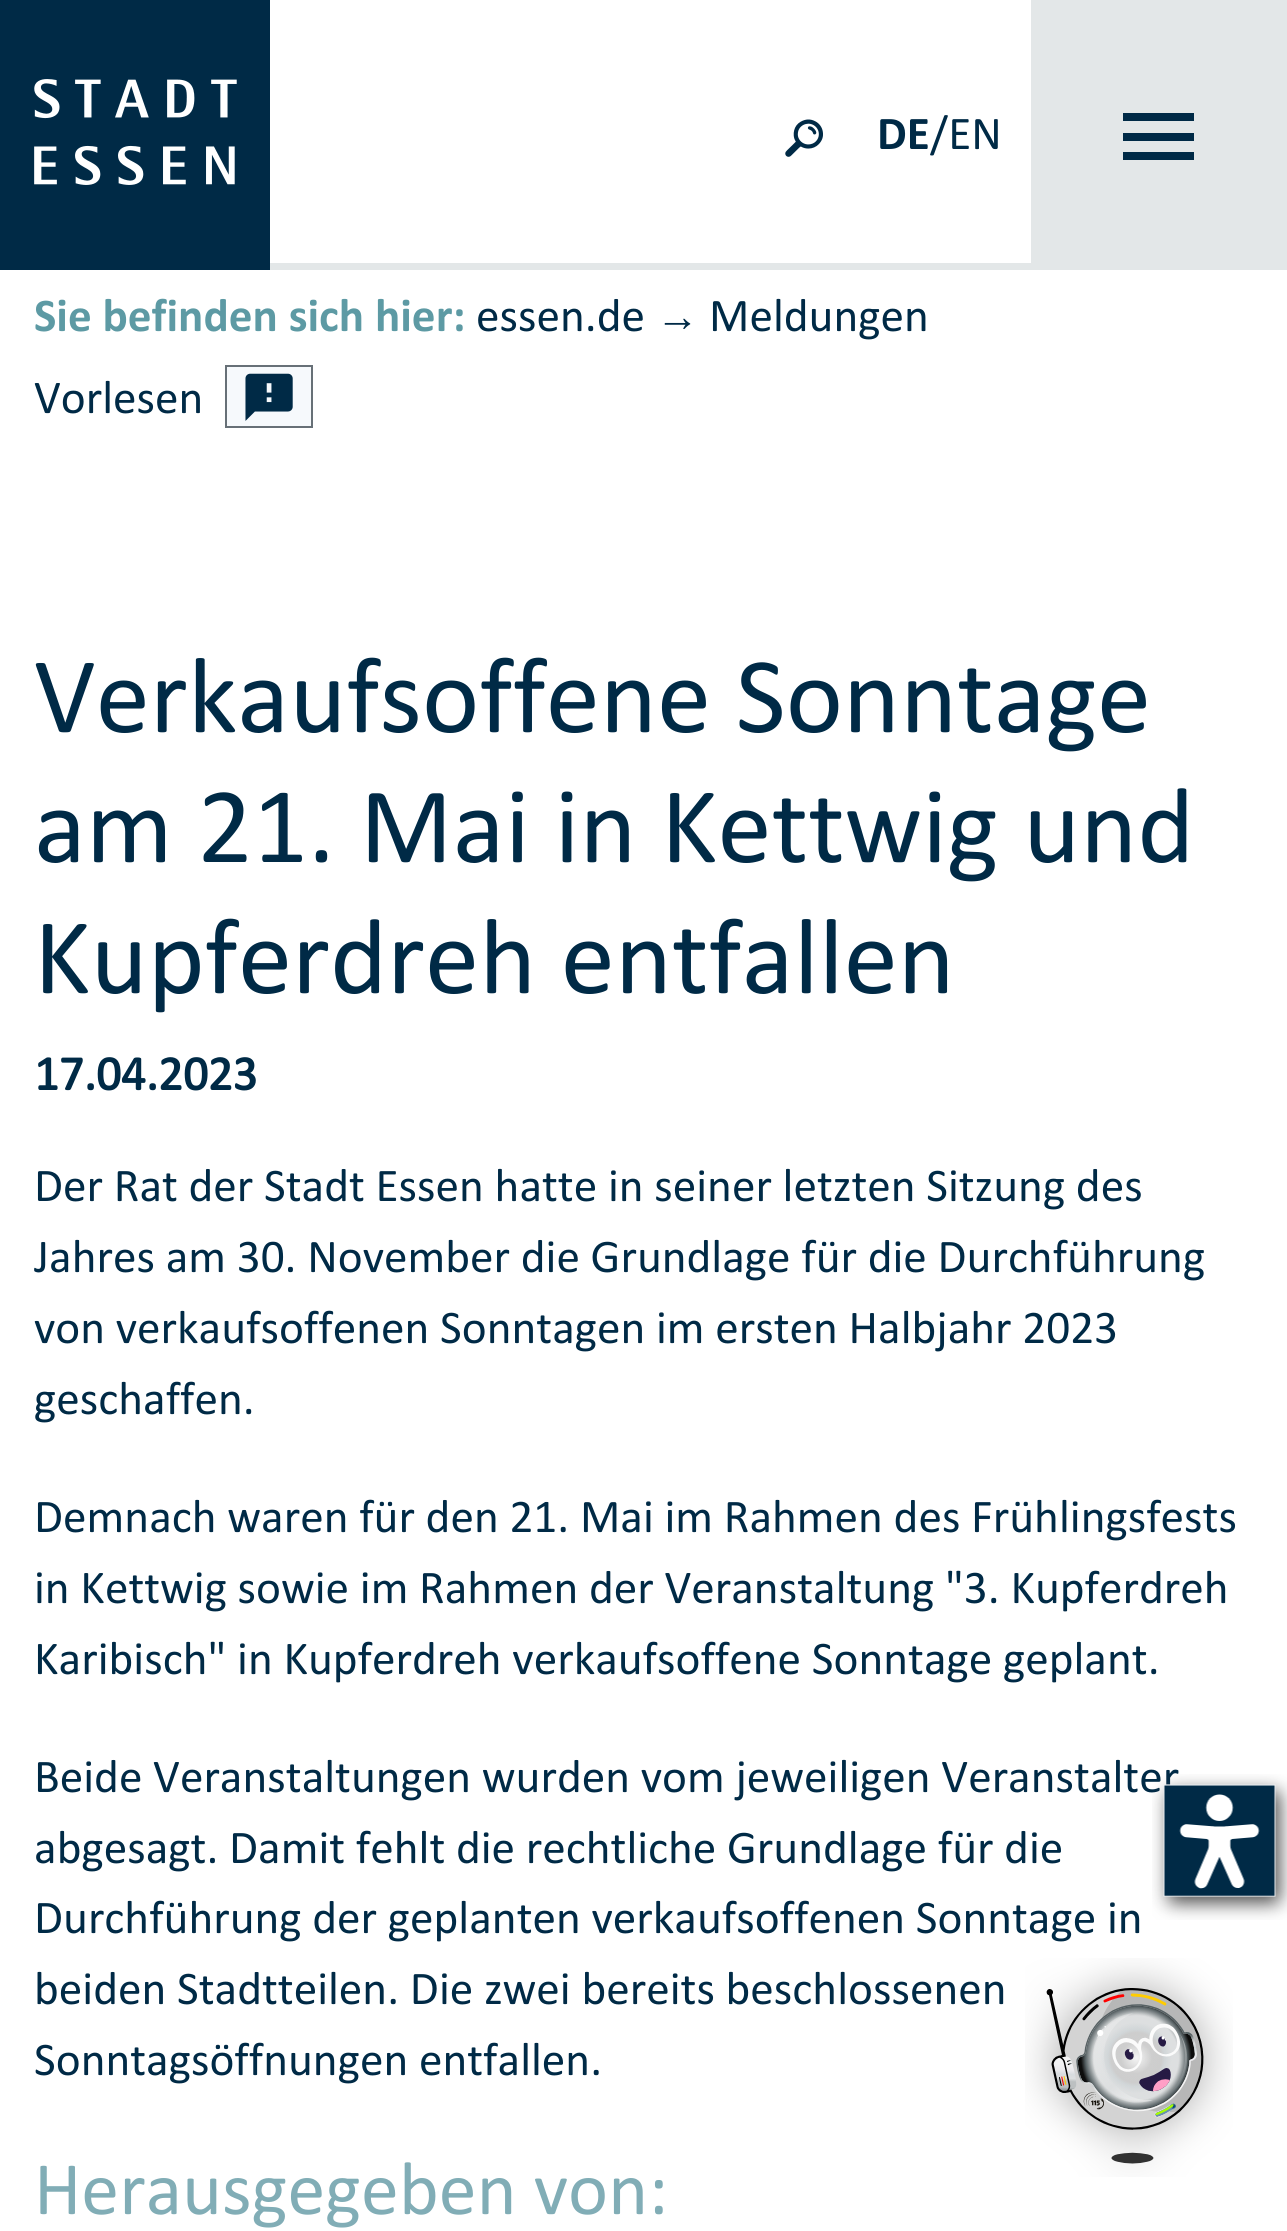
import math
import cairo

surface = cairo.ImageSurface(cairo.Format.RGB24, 1287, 2231)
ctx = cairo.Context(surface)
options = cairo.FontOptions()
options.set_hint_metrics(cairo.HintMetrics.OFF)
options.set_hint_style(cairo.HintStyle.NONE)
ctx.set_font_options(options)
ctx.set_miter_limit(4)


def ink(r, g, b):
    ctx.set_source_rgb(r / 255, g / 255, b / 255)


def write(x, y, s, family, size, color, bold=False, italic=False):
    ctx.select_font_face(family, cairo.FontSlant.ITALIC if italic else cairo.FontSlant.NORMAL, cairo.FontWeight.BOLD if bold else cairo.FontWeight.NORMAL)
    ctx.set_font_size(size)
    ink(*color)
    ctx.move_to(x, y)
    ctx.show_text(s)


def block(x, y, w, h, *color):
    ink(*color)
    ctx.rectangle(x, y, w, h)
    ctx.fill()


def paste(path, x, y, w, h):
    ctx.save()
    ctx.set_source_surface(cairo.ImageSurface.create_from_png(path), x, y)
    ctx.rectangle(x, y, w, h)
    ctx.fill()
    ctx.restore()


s1 = dict(family="Calibri", size=47.25, color=(0, 42, 70), bold=True)
s2 = dict(family="Calibri", size=47.25, color=(0, 42, 70))
s3 = dict(family="Calibri", size=47.25, color=(93, 154, 164), bold=True)
s4 = dict(family="Liberation Sans", size=43, color=(0, 42, 70))
s5 = dict(family="Calibri", size=108.75, color=(0, 42, 70))
s6 = dict(family="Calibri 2", size=49, color=(0, 42, 70), bold=True)
s7 = dict(family="Calibri", size=76, color=(129, 173, 182))

ink(255, 255, 255)
ctx.paint()
block(270, 263, 761, 7, 227, 231, 232)
paste("pic1.png", 0, 0, 270, 270)
paste("pic2.png", 785, 119, 38, 38)
write(877, 149, "DE", **s1)
write(930, 149, "/EN", **s2)
block(1031, 0, 256, 270, 227, 231, 232)
ink(0, 42, 70)
ctx.new_path()
ctx.move_to(1123, 160)
ctx.line_to(1194, 160)
ctx.line_to(1194, 152)
ctx.line_to(1123, 152)
ctx.close_path()
ctx.move_to(1123, 141)
ctx.line_to(1194, 141)
ctx.line_to(1194, 133)
ctx.line_to(1123, 133)
ctx.close_path()
ctx.move_to(1123, 113)
ctx.line_to(1123, 121)
ctx.line_to(1194, 121)
ctx.line_to(1194, 113)
ctx.close_path()
ctx.fill()
write(34, 331, "Sie befinden sich hier:", **s3)
write(476, 331, "essen.de", **s2)
write(656, 331, "→", **s4)
write(709, 331, "Meldungen", **s2)
write(34, 413, "Vorlesen", **s2)
ink(246, 249, 252)
ctx.rectangle(226, 366, 86, 61)
ctx.fill_preserve()
ink(103, 112, 119)
ctx.stroke()
paste("pic3.png", 245, 373, 48, 48)
write(34, 732, "Verkaufsoffene Sonntage", **s5)
write(34, 862, "am 21. Mai in Kettwig und", **s5)
write(34, 993, "Kupferdreh entfallen", **s5)
write(34, 1090, "17.04.2023", **s6)
write(34, 1201, "Der Rat der Stadt Essen hatte in seiner letzten Sitzung des", **s2)
write(34, 1272, "Jahres am 30. November die Grundlage für die Durchführung", **s2)
write(34, 1343, "von verkaufsoffenen Sonntagen im ersten Halbjahr 2023", **s2)
write(34, 1414, "geschaffen.", **s2)
write(34, 1532, "Demnach waren für den 21. Mai im Rahmen des Frühlingsfests", **s2)
write(34, 1603, "in Kettwig sowie im Rahmen der Veranstaltung \"3. Kupferdreh", **s2)
write(34, 1674, "Karibisch\" in Kupferdreh verkaufsoffene Sonntage geplant.", **s2)
write(34, 1792, "Beide Veranstaltungen wurden vom jeweiligen Veranstalter", **s2)
write(34, 1863, "abgesagt. Damit fehlt die rechtliche Grundlage für die", **s2)
write(34, 1933, "Durchführung der geplanten verkaufsoffenen Sonntage in", **s2)
write(34, 2004, "beiden Stadtteilen. Die zwei bereits beschlossenen", **s2)
write(34, 2075, "Sonntagsöffnungen entfallen.", **s2)
write(34, 2214, "Herausgegeben von:", **s7)
paste("pic4.png", 1152, 1774, 135, 146)
paste("pic5.png", 1025, 1958, 208, 219)
surface.write_to_png("screenshot.png")
